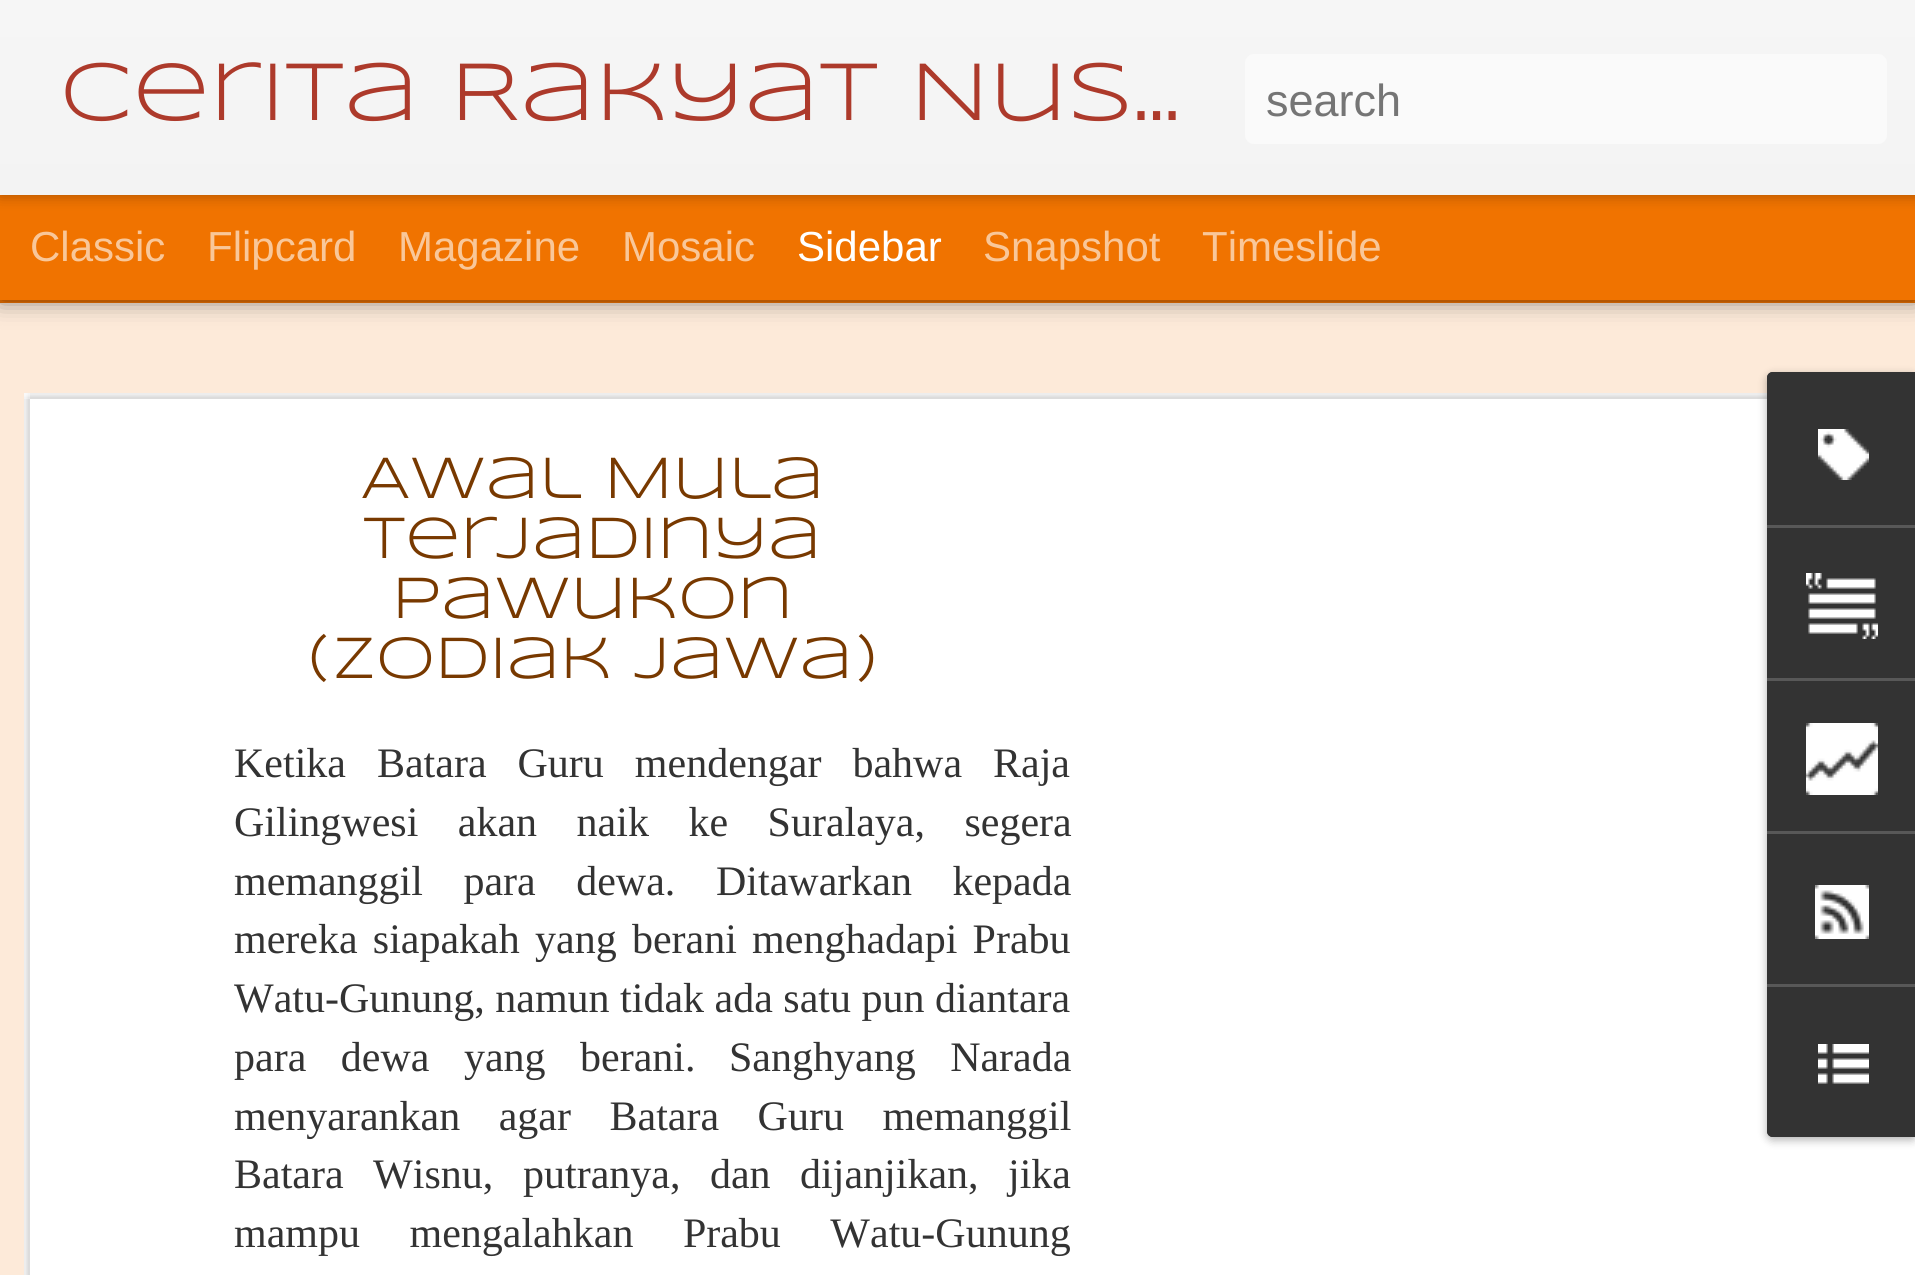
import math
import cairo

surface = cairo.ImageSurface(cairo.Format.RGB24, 1915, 1275)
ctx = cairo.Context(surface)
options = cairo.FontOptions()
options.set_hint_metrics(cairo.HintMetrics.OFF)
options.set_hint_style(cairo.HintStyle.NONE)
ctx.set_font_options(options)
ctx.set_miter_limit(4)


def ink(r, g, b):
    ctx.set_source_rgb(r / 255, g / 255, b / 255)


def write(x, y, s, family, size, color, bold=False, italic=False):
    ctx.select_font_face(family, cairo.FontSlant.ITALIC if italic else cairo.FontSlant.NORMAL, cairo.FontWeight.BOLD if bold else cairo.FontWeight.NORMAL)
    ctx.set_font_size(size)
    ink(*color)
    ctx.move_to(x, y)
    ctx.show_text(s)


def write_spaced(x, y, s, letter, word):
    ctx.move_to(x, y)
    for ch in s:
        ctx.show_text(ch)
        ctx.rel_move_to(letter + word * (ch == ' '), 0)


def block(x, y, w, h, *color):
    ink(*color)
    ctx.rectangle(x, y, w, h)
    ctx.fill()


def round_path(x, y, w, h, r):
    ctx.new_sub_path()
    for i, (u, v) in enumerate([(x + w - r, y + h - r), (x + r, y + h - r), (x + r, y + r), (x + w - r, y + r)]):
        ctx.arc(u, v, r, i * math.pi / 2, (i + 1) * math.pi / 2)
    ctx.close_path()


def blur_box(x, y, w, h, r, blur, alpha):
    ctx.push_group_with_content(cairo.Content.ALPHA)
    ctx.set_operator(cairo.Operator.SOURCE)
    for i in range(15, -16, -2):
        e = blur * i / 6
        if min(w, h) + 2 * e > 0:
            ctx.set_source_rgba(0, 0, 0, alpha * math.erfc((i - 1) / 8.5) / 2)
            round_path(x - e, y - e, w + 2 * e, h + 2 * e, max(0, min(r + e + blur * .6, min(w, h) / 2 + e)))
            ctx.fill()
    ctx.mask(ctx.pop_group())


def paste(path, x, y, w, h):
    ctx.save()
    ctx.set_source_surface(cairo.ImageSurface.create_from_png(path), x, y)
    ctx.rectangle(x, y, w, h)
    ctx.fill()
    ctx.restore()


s1 = dict(family="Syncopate", size=84, color=(173, 58, 43))
s2 = dict(family="Liberation Sans", size=45, color=(117, 117, 117))
s3 = dict(family="Liberation Sans", size=42, color=(249, 199, 153))
s4 = dict(family="Liberation Sans", size=42, color=(255, 255, 255))
s5 = dict(family="Syncopate", size=60, color=(120, 57, 0))
s6 = dict(family="Liberation Serif", size=42, color=(51, 51, 51))

ink(240, 115, 0)
ctx.paint()
block(0, 303, 1915, 972, 253, 234, 217)
ink(0, 0, 0)
blur_box(0, 195, 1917, 105, 0, 12, 0.5)
block(0, 195, 1915, 105, 240, 115, 0)
ink(0, 0, 0)
blur_box(0, 0, 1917, 195, 0, 7.5, 0.3)
gradient = cairo.LinearGradient(0, 0, 0, 195)
gradient.add_color_stop_rgba(0, 0.965, 0.965, 0.965, 1)
gradient.add_color_stop_rgba(1, 0.953, 0.953, 0.953, 1)
ctx.set_source(gradient)
ctx.rectangle(0, 0, 1915, 195)
ctx.fill()
write(60, 120, "Cerita Rakyat Nus…", **s1)
ink(250, 250, 250)
round_path(1245, 54, 642, 90, 9)
ctx.fill()
write(1266, 116, "search", **s2)
write(30, 261, "Classic", **s3)
write(207, 261, "Flipcard", **s3)
write(398, 261, "Magazine", **s3)
write(622, 261, "Mosaic", **s3)
write(797, 261, "Sidebar", **s4)
write(983, 261, "Snapshot", **s3)
write(1202, 261, "Timeslide", **s3)
block(24, 393, 1891, 882, 255, 255, 255)
paste("pic1.png", 24, 393, 1743, 882)
write(361, 498, "Awal Mula", **s5)
write(363, 558, "Terjadinya", **s5)
write(392, 618, "Pawukon", **s5)
write(307, 678, "(zodiak Jawa)", **s5)
ctx.select_font_face("Liberation Serif")
ctx.set_font_size(42)
ink(51, 51, 51)
write_spaced(234, 777, "Ketika Batara Guru mendengar bahwa Raja", 0, 20.5)
write_spaced(234, 836, "Gilingwesi akan naik ke Suralaya, segera", 0, 29)
write_spaced(234, 895, "memanggil para dewa.", 0, 30)
write_spaced(716, 895, "Ditawarkan kepada", 0, 30)
write_spaced(234, 953, "mereka siapakah yang berani menghadapi Prabu", 0, 4.75)
write(234, 1012, "Watu-Gunung, namun tidak ada satu pun diantara", **s6)
write_spaced(234, 1071, "para dewa yang berani.", 0, 24)
write_spaced(729, 1071, "Sanghyang Narada", 0, 24)
write_spaced(234, 1130, "menyarankan agar Batara Guru memanggil", 0, 28)
write_spaced(234, 1188, "Batara Wisnu,", 0, 19)
write_spaced(523, 1188, "putranya, dan dijanjikan, jika", 0, 19)
write_spaced(234, 1247, "mampu mengalahkan Prabu Watu-Gunung", 0, 39)
ink(0, 0, 0)
blur_box(1767, 375, 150, 765, 6, 4.5, 0.3)
ink(51, 51, 51)
ctx.new_path()
ctx.move_to(1773, 372)
ctx.line_to(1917, 372)
ctx.line_to(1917, 1137)
ctx.line_to(1773, 1137)
ctx.curve_to(1769.5, 1137, 1767, 1134.5, 1767, 1131)
ctx.line_to(1767, 378)
ctx.curve_to(1767, 374.5, 1769.5, 372, 1773, 372)
ctx.close_path()
ctx.fill()
ctx.new_path()
ctx.move_to(1773, 372)
ctx.line_to(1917, 372)
ctx.line_to(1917, 525)
ctx.line_to(1767, 525)
ctx.line_to(1767, 378)
ctx.curve_to(1767, 374.5, 1769.5, 372, 1773, 372)
ctx.close_path()
ctx.fill()
paste("pic2.png", 1818, 429, 51, 51)
block(1767, 525, 148, 3, 88, 88, 88)
paste("pic3.png", 1806, 573, 72, 66)
block(1767, 678, 148, 3, 88, 88, 88)
paste("pic4.png", 1806, 723, 72, 72)
block(1767, 831, 148, 3, 88, 88, 88)
paste("pic5.png", 1815, 885, 54, 54)
ink(51, 51, 51)
ctx.new_path()
ctx.move_to(1767, 984)
ctx.line_to(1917, 984)
ctx.line_to(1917, 1137)
ctx.line_to(1773, 1137)
ctx.curve_to(1769.5, 1137, 1767, 1134.5, 1767, 1131)
ctx.close_path()
ctx.fill()
block(1767, 984, 148, 3, 88, 88, 88)
paste("pic6.png", 1818, 1044, 51, 40)
surface.write_to_png("screenshot.png")
